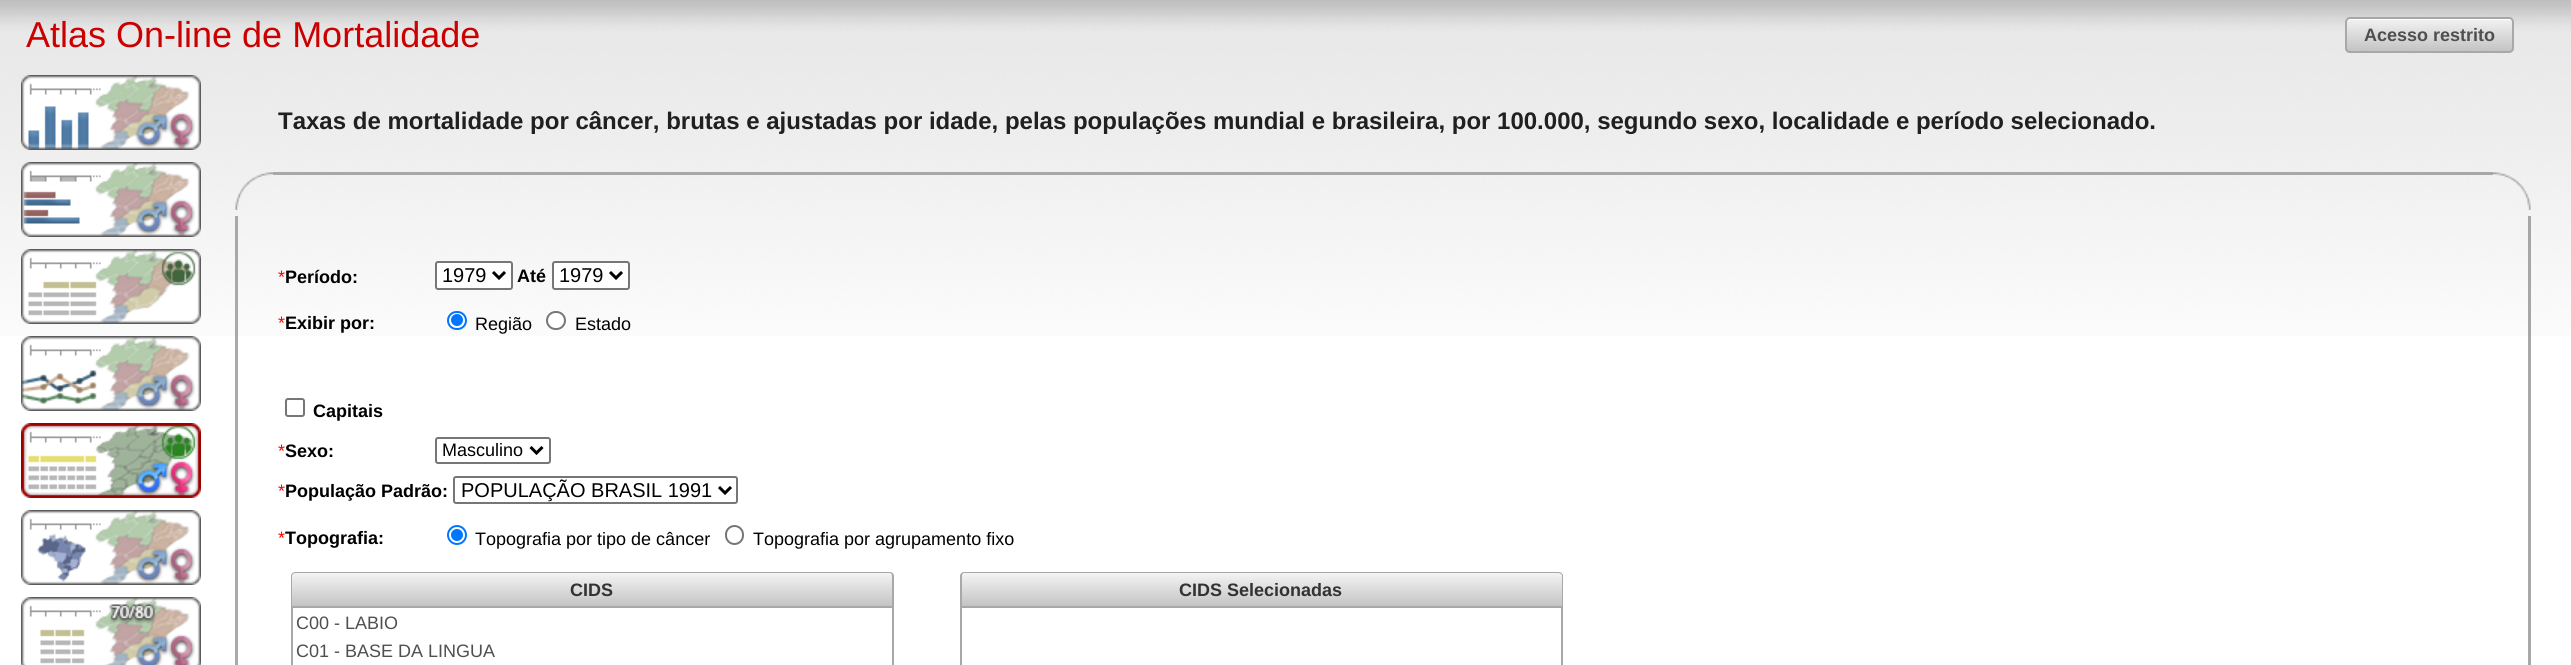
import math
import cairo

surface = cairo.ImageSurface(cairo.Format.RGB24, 2571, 665)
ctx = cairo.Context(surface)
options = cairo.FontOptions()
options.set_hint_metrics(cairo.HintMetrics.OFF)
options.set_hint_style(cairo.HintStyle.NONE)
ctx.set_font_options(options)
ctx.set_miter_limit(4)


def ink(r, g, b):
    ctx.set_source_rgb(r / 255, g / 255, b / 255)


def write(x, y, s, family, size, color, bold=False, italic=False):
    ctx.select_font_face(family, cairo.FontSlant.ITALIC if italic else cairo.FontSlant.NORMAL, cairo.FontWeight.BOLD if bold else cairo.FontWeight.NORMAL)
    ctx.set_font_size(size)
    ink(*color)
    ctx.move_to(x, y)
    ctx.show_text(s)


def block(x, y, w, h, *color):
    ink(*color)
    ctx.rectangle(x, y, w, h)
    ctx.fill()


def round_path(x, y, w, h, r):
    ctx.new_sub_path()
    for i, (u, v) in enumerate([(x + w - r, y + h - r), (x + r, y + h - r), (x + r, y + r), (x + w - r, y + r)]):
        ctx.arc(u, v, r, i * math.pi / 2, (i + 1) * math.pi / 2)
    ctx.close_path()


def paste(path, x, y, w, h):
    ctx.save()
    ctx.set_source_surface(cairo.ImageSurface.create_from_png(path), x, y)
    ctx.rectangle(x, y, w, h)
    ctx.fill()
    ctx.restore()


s1 = dict(family="Liberation Sans", size=36, color=(203, 0, 0))
s2 = dict(family="Liberation Sans", size=18, color=(79, 79, 79), bold=True)
s3 = dict(family="Liberation Sans", size=24, color=(32, 32, 32), bold=True)
s4 = dict(family="Liberation Sans", size=18, color=(255, 0, 0))
s5 = dict(family="Liberation Sans", size=18, color=(0, 0, 0), bold=True)
s6 = dict(family="Liberation Sans", size=20, color=(0, 0, 0))
s7 = dict(family="Liberation Sans", size=18, color=(0, 0, 0))
s8 = dict(family="Liberation Sans", size=18, color=(51, 51, 51), bold=True)
s9 = dict(family="Liberation Sans", size=18, color=(79, 79, 79))

ink(255, 255, 255)
ctx.paint()
paste("pic1.png", 0, 0, 2571, 336)
write(26, 47, "Atlas On-line de Mortalidade", **s1)
ink(196, 196, 196)
round_path(2345, 17, 169, 36, 5)
ctx.fill()
ctx.save()
round_path(2345, 17, 169, 36, 5)
ctx.clip()
gradient = cairo.LinearGradient(2346, 18, 2346, 51)
gradient.add_color_stop_rgba(0, 1, 1, 1, 0.8)
gradient.add_color_stop_rgba(1, 1, 1, 1, 0)
ctx.set_source(gradient)
ctx.rectangle(2345, 18, 169, 32)
ctx.fill()
ctx.restore()
ink(255, 255, 255)
ctx.new_path()
ctx.move_to(2349, 20)
ctx.line_to(2510, 20)
ctx.curve_to(2514, 20, 2512, 30, 2512, 31)
ctx.line_to(2512, 50)
ctx.curve_to(2513, 50, 2513, 49, 2513, 48)
ctx.line_to(2513, 21)
ctx.curve_to(2513, 19, 2512, 18, 2510, 18)
ctx.line_to(2349, 18)
ctx.curve_to(2347, 18, 2346, 19, 2346, 21)
ctx.line_to(2346, 22)
ctx.curve_to(2346, 21, 2347, 20, 2349, 20)
ctx.close_path()
ctx.fill()
round_path(2346, 18, 167, 34, 4)
ink(168, 168, 168)
ctx.stroke()
write(2364, 41, "Acesso restrito", **s2)
paste("pic2.png", 21, 75, 180, 75)
paste("pic3.png", 21, 162, 180, 75)
paste("pic4.png", 21, 249, 180, 75)
paste("pic5.png", 21, 336, 180, 75)
paste("pic6.png", 21, 423, 180, 75)
paste("pic7.png", 21, 510, 180, 75)
paste("pic8.png", 21, 597, 180, 68)
write(278, 129, "Taxas de mortalidade por câncer, brutas e ajustadas por idade, pelas populações mundial e brasileira, por 100.000, segundo sexo, localidade e período selecionado.", **s3)
paste("pic9.png", 235, 172, 38, 38)
block(273, 172, 2220, 3, 168, 168, 168)
paste("pic10.png", 2493, 172, 38, 38)
ctx.set_source_rgba(0.6, 0.6, 0.6, 0.83)
ctx.rectangle(235, 216, 3, 449)
ctx.fill()
write(278, 283, "*", **s4)
write(285, 283, "Período:", **s5)
ink(255, 255, 255)
round_path(436, 262, 76, 27, 2)
ctx.fill_preserve()
ink(118, 118, 118)
ctx.stroke()
ctx.new_path()
ctx.move_to(493, 272)
ctx.line_to(499, 278)
ctx.line_to(505, 272)
ink(0, 0, 0)
ctx.set_line_width(3)
ctx.stroke()
write(442, 282, "1979", **s6)
write(517, 282, "Até", **s5)
ink(255, 255, 255)
round_path(553, 262, 76, 27, 2)
ctx.fill_preserve()
ink(118, 118, 118)
ctx.set_line_width(2)
ctx.stroke()
ctx.new_path()
ctx.move_to(610, 272)
ctx.line_to(616, 278)
ctx.line_to(622, 272)
ink(0, 0, 0)
ctx.set_line_width(3)
ctx.stroke()
write(559, 282, "1979", **s6)
write(278, 329, "*", **s4)
write(285, 329, "Exibir por:", **s5)
ink(255, 255, 255)
round_path(448, 312, 18, 17, 8.5)
ctx.fill_preserve()
ink(0, 117, 255)
ctx.set_line_width(2)
ctx.stroke()
ctx.arc(457, 320, 6, 0, 2 * math.pi)
ctx.fill()
write(475, 330, "Região", **s7)
ink(255, 255, 255)
round_path(547, 312, 18, 17, 8.5)
ctx.fill_preserve()
ink(118, 118, 118)
ctx.stroke()
write(575, 330, "Estado", **s7)
round_path(286, 399, 18, 17, 2)
ink(118, 118, 118)
ctx.stroke()
write(313, 417, "Capitais", **s5)
write(278, 457, "*", **s4)
write(285, 457, "Sexo:", **s5)
round_path(436, 438, 114, 25, 2)
ink(118, 118, 118)
ctx.stroke()
ctx.new_path()
ctx.move_to(530.5, 447)
ctx.line_to(536.5, 453)
ctx.line_to(542.5, 447)
ink(0, 0, 0)
ctx.set_line_width(3)
ctx.stroke()
write(442, 456, "Masculino", **s7)
write(278, 497, "*", **s4)
write(285, 497, "População Padrão:", **s5)
round_path(454, 477, 283, 26, 2)
ink(118, 118, 118)
ctx.set_line_width(2)
ctx.stroke()
ctx.new_path()
ctx.move_to(719, 487)
ctx.line_to(725, 493)
ctx.line_to(731, 487)
ink(0, 0, 0)
ctx.set_line_width(3)
ctx.stroke()
write(461, 497, "POPULAÇÃO BRASIL 1991", **s6)
write(278, 544, "*", **s4)
write(285, 544, "Topografia:", **s5)
ctx.new_path()
ctx.arc(457, 535, 9, 0, 2 * math.pi)
ink(0, 117, 255)
ctx.set_line_width(2)
ctx.stroke()
ctx.arc(457, 535, 6, 0, 2 * math.pi)
ctx.fill()
write(475, 545, "Topografia por tipo de câncer", **s7)
round_path(726, 526, 17, 18, 8.5)
ink(118, 118, 118)
ctx.stroke()
write(753, 545, "Topografia por agrupamento fixo", **s7)
ink(196, 196, 196)
ctx.new_path()
ctx.move_to(296, 572)
ctx.line_to(889, 572)
ctx.curve_to(892, 572, 894, 574, 894, 577)
ctx.line_to(894, 606)
ctx.line_to(291, 606)
ctx.line_to(291, 577)
ctx.curve_to(291, 574, 293, 572, 296, 572)
ctx.close_path()
ctx.fill()
ctx.save()
ctx.new_path()
ctx.move_to(296, 572)
ctx.line_to(889, 572)
ctx.curve_to(892, 572, 894, 574, 894, 577)
ctx.line_to(894, 606)
ctx.line_to(291, 606)
ctx.line_to(291, 577)
ctx.curve_to(291, 574, 293, 572, 296, 572)
ctx.close_path()
ctx.clip()
gradient = cairo.LinearGradient(293, 573, 293, 606)
gradient.add_color_stop_rgba(0, 1, 1, 1, 0.8)
gradient.add_color_stop_rgba(1, 1, 1, 1, 0)
ctx.set_source(gradient)
ctx.rectangle(291, 573, 603, 32)
ctx.fill()
ctx.restore()
ink(168, 168, 168)
ctx.set_fill_rule(cairo.FillRule.EVEN_ODD)
ctx.new_path()
ctx.move_to(296, 572)
ctx.line_to(890, 572)
ctx.curve_to(892, 572, 894, 574, 894, 576)
ctx.line_to(894, 606)
ctx.line_to(291, 606)
ctx.line_to(291, 576)
ctx.curve_to(291, 574, 293, 572, 296, 572)
ctx.close_path()
ctx.move_to(296, 573)
ctx.line_to(890, 573)
ctx.curve_to(891, 573, 892, 574, 892, 576)
ctx.line_to(892, 606)
ctx.line_to(292, 606)
ctx.line_to(292, 576)
ctx.curve_to(292, 574, 294, 573, 296, 573)
ctx.close_path()
ctx.fill()
write(570, 596, "CIDS", **s8)
ctx.rectangle(292, 607, 601, 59)
ink(168, 168, 168)
ctx.stroke()
write(296, 629, "C00 - LABIO", **s9)
write(296, 657, "C01 - BASE DA LINGUA", **s9)
ink(196, 196, 196)
ctx.new_path()
ctx.move_to(965, 572)
ctx.line_to(1558, 572)
ctx.curve_to(1561, 572, 1563, 574, 1563, 577)
ctx.line_to(1563, 606)
ctx.line_to(960, 606)
ctx.line_to(960, 577)
ctx.curve_to(960, 574, 962, 572, 965, 572)
ctx.close_path()
ctx.fill()
ctx.save()
ctx.set_fill_rule(cairo.FillRule.WINDING)
ctx.new_path()
ctx.move_to(965, 572)
ctx.line_to(1558, 572)
ctx.curve_to(1561, 572, 1563, 574, 1563, 577)
ctx.line_to(1563, 606)
ctx.line_to(960, 606)
ctx.line_to(960, 577)
ctx.curve_to(960, 574, 962, 572, 965, 572)
ctx.close_path()
ctx.clip()
gradient = cairo.LinearGradient(962, 573, 962, 606)
gradient.add_color_stop_rgba(0, 1, 1, 1, 0.8)
gradient.add_color_stop_rgba(1, 1, 1, 1, 0)
ctx.set_source(gradient)
ctx.rectangle(960, 573, 603, 32)
ctx.fill()
ctx.restore()
ink(168, 168, 168)
ctx.new_path()
ctx.move_to(964, 572)
ctx.line_to(1558, 572)
ctx.curve_to(1561, 572, 1563, 574, 1563, 576)
ctx.line_to(1563, 606)
ctx.line_to(960, 606)
ctx.line_to(960, 576)
ctx.curve_to(960, 574, 962, 572, 964, 572)
ctx.close_path()
ctx.move_to(964, 573)
ctx.line_to(1558, 573)
ctx.curve_to(1560, 573, 1562, 574, 1562, 576)
ctx.line_to(1562, 606)
ctx.line_to(962, 606)
ctx.line_to(962, 576)
ctx.curve_to(962, 574, 963, 573, 964, 573)
ctx.close_path()
ctx.fill()
write(1179, 596, "CIDS Selecionadas", **s8)
ctx.rectangle(961, 607, 601, 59)
ink(168, 168, 168)
ctx.stroke()
ctx.set_source_rgba(0.596, 0.596, 0.596, 0.84)
ctx.rectangle(2528, 216, 3, 449)
ctx.fill()
surface.write_to_png("screenshot.png")
